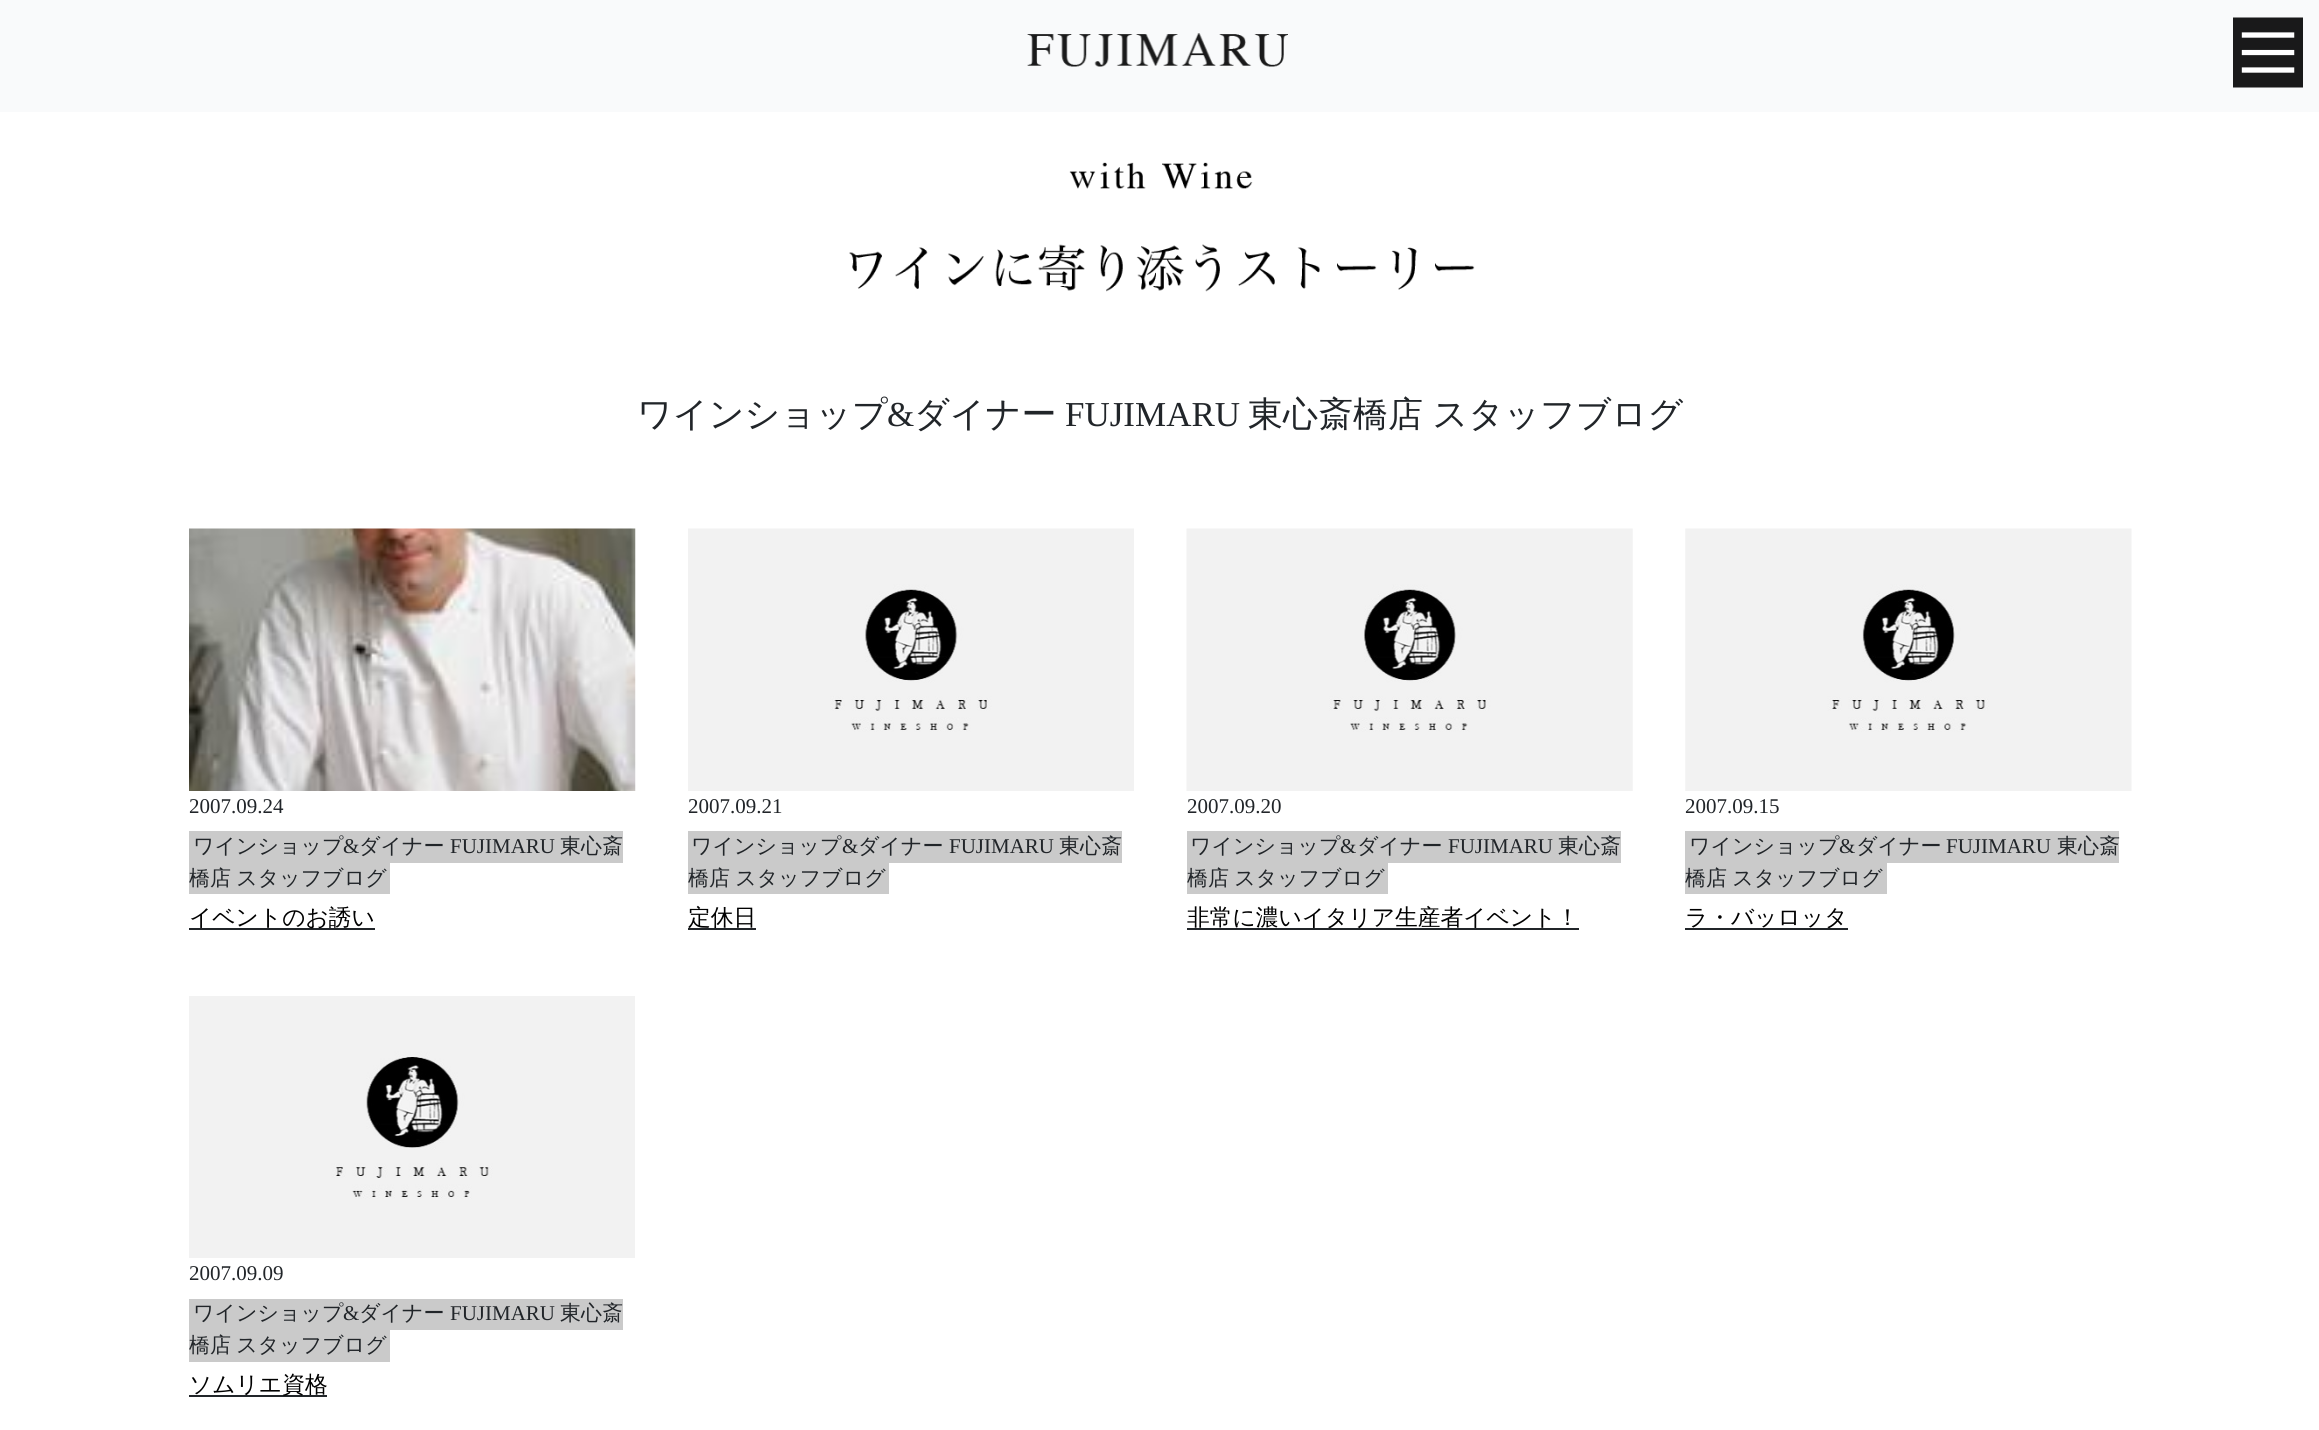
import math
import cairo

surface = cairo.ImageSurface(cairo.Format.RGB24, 2319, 1430)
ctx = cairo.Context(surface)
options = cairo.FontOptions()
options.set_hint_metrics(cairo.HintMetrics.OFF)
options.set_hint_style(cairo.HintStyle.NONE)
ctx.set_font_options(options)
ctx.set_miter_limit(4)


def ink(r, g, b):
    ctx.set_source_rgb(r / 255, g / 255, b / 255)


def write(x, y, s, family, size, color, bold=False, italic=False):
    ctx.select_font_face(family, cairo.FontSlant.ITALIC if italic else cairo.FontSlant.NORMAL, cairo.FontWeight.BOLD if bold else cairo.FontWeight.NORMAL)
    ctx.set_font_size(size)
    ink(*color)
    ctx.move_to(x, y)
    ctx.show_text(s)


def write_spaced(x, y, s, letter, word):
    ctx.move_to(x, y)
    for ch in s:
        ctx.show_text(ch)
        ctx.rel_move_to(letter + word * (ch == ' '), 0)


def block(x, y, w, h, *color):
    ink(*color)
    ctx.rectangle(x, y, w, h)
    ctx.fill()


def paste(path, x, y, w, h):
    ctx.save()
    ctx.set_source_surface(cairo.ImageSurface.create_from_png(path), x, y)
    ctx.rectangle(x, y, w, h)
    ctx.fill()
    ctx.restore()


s1 = dict(family="WenQuanYi Zen Hei Medium", size=35, color=(33, 37, 41))
s2 = dict(family="Liberation Serif", size=35, color=(33, 37, 41))
s3 = dict(family="Liberation Serif", size=21, color=(33, 37, 41))
s4 = dict(family="WenQuanYi Zen Hei Medium", size=21, color=(33, 37, 41))
s5 = dict(family="WenQuanYi Zen Hei Medium", size=22.75, color=(0, 0, 0))

ink(255, 255, 255)
ctx.paint()
block(0, 0, 2319, 112, 249, 250, 251)
paste("pic1.png", 1027, 33, 261, 34)
paste("pic2.png", 2233, 17, 70, 71)
paste("pic3.png", 849, 162, 626, 130)
write(637, 426, "ワインショップ", **s1)
write(887, 426, "&", **s2)
write(914, 426, "ダイナー", **s1)
write(1065, 426, "FUJIMARU", **s2)
ctx.select_font_face("WenQuanYi Zen Hei Medium")
write_spaced(1248, 426, "東心斎橋店 スタッフブログ", 0, -1)
paste("pic4.png", 189, 528, 447, 263)
write(189, 813, "2007.09.24", **s3)
block(189, 831, 434, 32, 202, 202, 202)
write(193, 853, "ワインショップ", **s4)
write(343, 853, "&", **s3)
write(359, 853, "ダイナー", **s4)
write(450, 853, "FUJIMARU", **s3)
write(560, 853, "東心斎", **s4)
block(189, 863, 201, 31, 202, 202, 202)
ink(33, 37, 41)
write_spaced(189, 885, "橋店 スタッフブログ", 0, -1)
block(189, 928, 186, 2, 33, 37, 41)
write(189, 925, "イベントのお誘い", **s5)
paste("pic5.png", 688, 528, 446, 263)
write(688, 813, "2007.09.21", **s3)
block(688, 831, 434, 32, 202, 202, 202)
write(691, 853, "ワインショップ", **s4)
write(842, 853, "&", **s3)
write(858, 853, "ダイナー", **s4)
write(949, 853, "FUJIMARU", **s3)
write(1059, 853, "東心斎", **s4)
block(688, 863, 201, 31, 202, 202, 202)
ink(33, 37, 41)
write_spaced(688, 885, "橋店 スタッフブログ", 0, -1)
block(688, 928, 68, 2, 33, 37, 41)
write(688, 925, "定休日", **s5)
paste("pic6.png", 1186, 528, 447, 263)
write(1187, 813, "2007.09.20", **s3)
block(1187, 831, 434, 32, 202, 202, 202)
write(1190, 853, "ワインショップ", **s4)
write(1340, 853, "&", **s3)
write(1357, 853, "ダイナー", **s4)
write(1448, 853, "FUJIMARU", **s3)
write(1558, 853, "東心斎", **s4)
block(1187, 863, 201, 31, 202, 202, 202)
ink(33, 37, 41)
write_spaced(1187, 885, "橋店 スタッフブログ", 0, -1)
block(1187, 928, 392, 2, 33, 37, 41)
write(1187, 925, "非常に濃いイタリア生産者イベント！", **s5)
paste("pic7.png", 1685, 528, 447, 263)
write(1685, 813, "2007.09.15", **s3)
block(1685, 831, 434, 32, 202, 202, 202)
write(1689, 853, "ワインショップ", **s4)
write(1839, 853, "&", **s3)
write(1856, 853, "ダイナー", **s4)
write(1946, 853, "FUJIMARU", **s3)
write(2057, 853, "東心斎", **s4)
block(1685, 863, 202, 31, 202, 202, 202)
ink(33, 37, 41)
write_spaced(1685, 885, "橋店 スタッフブログ", 0, -1)
block(1685, 928, 163, 2, 33, 37, 41)
write(1685, 925, "ラ・バッロッタ", **s5)
paste("pic8.png", 189, 996, 446, 262)
write(189, 1280, "2007.09.09", **s3)
block(189, 1299, 434, 31, 202, 202, 202)
write(193, 1320, "ワインショップ", **s4)
write(343, 1320, "&", **s3)
write(359, 1320, "ダイナー", **s4)
write(450, 1320, "FUJIMARU", **s3)
write(560, 1320, "東心斎", **s4)
block(189, 1330, 201, 32, 202, 202, 202)
ink(33, 37, 41)
write_spaced(189, 1352, "橋店 スタッフブログ", 0, -1)
block(189, 1395, 138, 2, 33, 37, 41)
write(189, 1392, "ソムリエ資格", **s5)
surface.write_to_png("screenshot.png")
